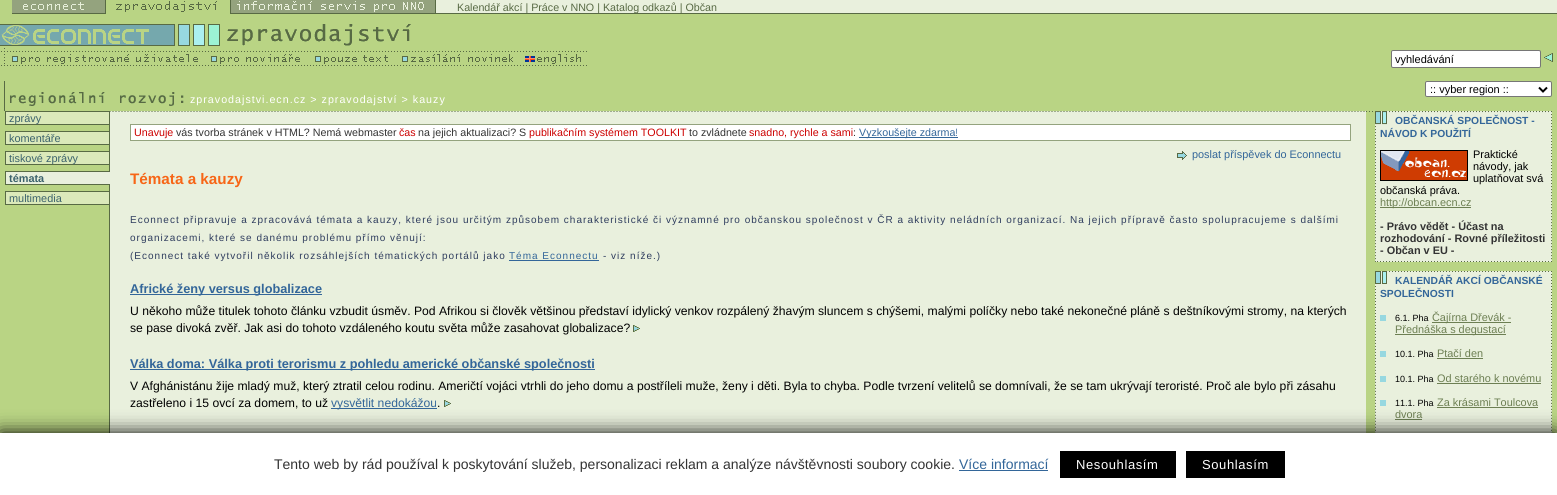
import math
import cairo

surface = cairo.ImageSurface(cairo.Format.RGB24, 1557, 495)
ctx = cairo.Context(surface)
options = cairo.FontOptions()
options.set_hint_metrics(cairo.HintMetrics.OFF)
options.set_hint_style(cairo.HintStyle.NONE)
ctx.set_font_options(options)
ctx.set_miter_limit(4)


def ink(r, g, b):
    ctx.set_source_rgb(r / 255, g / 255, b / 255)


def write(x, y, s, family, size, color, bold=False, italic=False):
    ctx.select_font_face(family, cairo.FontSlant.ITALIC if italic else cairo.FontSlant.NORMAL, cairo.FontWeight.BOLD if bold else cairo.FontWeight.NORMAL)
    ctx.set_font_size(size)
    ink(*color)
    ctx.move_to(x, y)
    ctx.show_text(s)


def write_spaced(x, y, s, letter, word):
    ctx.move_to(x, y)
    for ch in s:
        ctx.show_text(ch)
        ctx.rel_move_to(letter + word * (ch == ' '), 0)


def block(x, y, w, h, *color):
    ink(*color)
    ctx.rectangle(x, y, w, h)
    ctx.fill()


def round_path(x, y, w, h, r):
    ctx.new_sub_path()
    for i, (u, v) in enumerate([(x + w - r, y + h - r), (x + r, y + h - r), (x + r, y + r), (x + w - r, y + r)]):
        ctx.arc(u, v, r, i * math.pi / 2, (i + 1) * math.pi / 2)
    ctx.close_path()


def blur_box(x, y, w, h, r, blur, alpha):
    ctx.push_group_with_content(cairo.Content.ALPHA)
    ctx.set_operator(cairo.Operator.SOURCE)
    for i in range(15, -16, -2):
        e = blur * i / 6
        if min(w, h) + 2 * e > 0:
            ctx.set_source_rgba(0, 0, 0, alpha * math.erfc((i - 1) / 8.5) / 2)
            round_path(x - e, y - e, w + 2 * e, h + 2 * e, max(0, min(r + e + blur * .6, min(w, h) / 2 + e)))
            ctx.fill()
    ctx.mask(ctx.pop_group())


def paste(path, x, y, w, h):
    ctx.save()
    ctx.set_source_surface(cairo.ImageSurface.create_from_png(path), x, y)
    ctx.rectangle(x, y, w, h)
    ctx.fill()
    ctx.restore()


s1 = dict(family="Liberation Sans", size=10.7, color=(88, 106, 68))
s2 = dict(family="Liberation Sans", size=11, color=(0, 0, 0))
s3 = dict(family="Liberation Sans", size=10.9, color=(60, 99, 108))
s4 = dict(family="Liberation Sans", size=10.9, color=(60, 99, 108), bold=True)
s5 = dict(family="Liberation Sans", size=10.7, color=(204, 0, 0))
s6 = dict(family="Liberation Sans", size=10.7, color=(51, 51, 51))
s7 = dict(family="Liberation Sans", size=10.7, color=(51, 102, 153))
s8 = dict(family="Liberation Sans", size=10.9, color=(51, 102, 153))
s9 = dict(family="Liberation Sans", size=15.25, color=(247, 102, 23), bold=True)
s10 = dict(family="Liberation Sans", size=12.75, color=(51, 102, 153), bold=True)
s11 = dict(family="Liberation Sans", size=12.16, color=(0, 0, 0))
s12 = dict(family="Liberation Sans", size=12.16, color=(51, 102, 153))
s13 = dict(family="Liberation Sans", size=10.3, color=(51, 102, 153), bold=True)
s14 = dict(family="Liberation Sans", size=10.9, color=(0, 0, 0))
s15 = dict(family="Liberation Sans", size=10.9, color=(109, 127, 83))
s16 = dict(family="Liberation Sans", size=10.9, color=(51, 51, 51), bold=True)
s17 = dict(family="Liberation Sans", size=9, color=(0, 0, 0))
s18 = dict(family="Liberation Sans", size=14, color=(51, 51, 51))
s19 = dict(family="Liberation Sans", size=14, color=(51, 102, 153))

ink(185, 212, 132)
ctx.paint()
paste("pic1.png", 12, 0, 94, 14)
paste("pic2.png", 116, 0, 115, 14)
paste("pic3.png", 231, 0, 205, 14)
block(436, 0, 1121, 13, 233, 240, 221)
block(436, 13, 1121, 1, 88, 106, 68)
write(457, 11, "Kalendář akcí | Práce v NNO | Katalog odkazů | Občan", **s1)
paste("pic4.png", 0, 24, 220, 25)
paste("pic5.png", 227, 24, 184, 22)
paste("pic6.png", 1, 51, 208, 15)
paste("pic7.png", 211, 51, 103, 15)
paste("pic8.png", 315, 51, 86, 15)
paste("pic9.png", 402, 51, 122, 15)
paste("pic10.png", 525, 51, 62, 15)
ink(255, 255, 255)
round_path(1391.5, 50.5, 149, 17, 1.5)
ctx.fill_preserve()
ink(118, 118, 118)
ctx.set_line_width(1)
ctx.stroke()
write(1395, 63, "vyhledávání", **s2)
paste("pic11.png", 1544, 53, 9, 9)
paste("pic12.png", 4, 81, 180, 30)
ink(255, 255, 255)
round_path(1425.5, 81.5, 126, 15, 1.5)
ctx.fill_preserve()
ink(118, 118, 118)
ctx.stroke()
ctx.new_path()
ctx.move_to(1539, 87.5)
ctx.line_to(1543, 91.5)
ctx.line_to(1547, 87.5)
ink(0, 0, 0)
ctx.set_line_width(2)
ctx.stroke()
write(1430, 93, ":: vyber region ::", **s2)
ctx.set_font_size(10.7)
ink(255, 255, 255)
write_spaced(190, 103, "zpravodajstvi.ecn.cz > zpravodajství > kauzy", 1, 0)
block(109, 125, 1, 308, 88, 106, 68)
ink(219, 233, 186)
ctx.rectangle(5.5, 111.5, 104, 13)
ctx.fill_preserve()
ink(88, 106, 68)
ctx.set_line_width(1)
ctx.stroke()
write(9, 122, "zprávy", **s3)
ink(219, 233, 186)
ctx.rectangle(5.5, 131.5, 104, 13)
ctx.fill_preserve()
ink(88, 106, 68)
ctx.stroke()
write(9, 142, "komentáře", **s3)
ink(219, 233, 186)
ctx.rectangle(5.5, 151.5, 104, 13)
ctx.fill_preserve()
ink(88, 106, 68)
ctx.stroke()
write(9, 162, "tiskové zprávy", **s3)
block(6, 172, 104, 12, 233, 240, 221)
block(5, 171, 105, 1, 88, 106, 68)
block(5, 184, 105, 1, 88, 106, 68)
block(5, 171, 1, 14, 88, 106, 68)
write(9, 182, "témata", **s4)
ink(219, 233, 186)
ctx.rectangle(5.5, 191.5, 104, 13)
ctx.fill_preserve()
ink(88, 106, 68)
ctx.stroke()
write(9, 202, "multimedia", **s3)
block(110, 111, 1256, 322, 233, 240, 221)
paste("pic13.png", 110, 111, 1255, 1)
ink(255, 255, 255)
ctx.rectangle(130.5, 124.5, 1220, 16)
ctx.fill_preserve()
ink(148, 163, 126)
ctx.stroke()
write(134, 136, "Unavuje", **s5)
write(176, 136, "vás tvorba stránek v HTML? Nemá webmaster", **s6)
write(399, 136, "čas", **s5)
write(418, 136, "na jejich aktualizaci? S", **s6)
write(529, 136, "publikačním systémem TOOLKIT", **s5)
write(689, 136, "to zvládnete", **s6)
write(749, 136, "snadno, rychle a sami", **s5)
write(853, 136, ":", **s6)
block(859, 137, 99, 1, 51, 102, 153)
write(859, 136, "Vyzkoušejte zdarma!", **s7)
paste("pic14.png", 1177, 151, 10, 9)
write(1192, 158, "poslat příspěvek do Econnectu", **s8)
write(130, 184, "Témata a kauzy", **s9)
ctx.select_font_face("Liberation Sans")
ctx.set_font_size(10)
ink(47, 61, 94)
write_spaced(130, 223, "Econnect připravuje a zpracovává témata a kauzy, které jsou určitým způsobem charakteristické či významné pro občanskou společnost v ČR a aktivity neládních organizací. Na jejich přípravě často spolupracujeme s dalšími", 1, 0)
write_spaced(130, 241, "organizacemi, které se danému problému přímo věnují:", 1, 0)
write_spaced(130, 259, "(Econnect také vytvořil několik rozsáhlejších tématických portálů jako", 1, 0)
ink(51, 102, 153)
write_spaced(509, 259, "Téma Econnectu", 1, 0)
block(509, 260, 90, 1, 51, 102, 153)
ink(47, 61, 94)
write_spaced(603, 259, "- viz níže.)", 1, 0)
block(130, 294, 192, 1, 51, 102, 153)
write(130, 293, "Africké ženy versus globalizace", **s10)
write(130, 315, "U někoho může titulek tohoto článku vzbudit úsměv. Pod Afrikou si člověk většinou představí idylický venkov rozpálený žhavým sluncem s chýšemi, malými políčky nebo také nekonečné pláně s deštníkovými stromy, na kterých", **s11)
write(130, 332, "se pase divoká zvěř. Jak asi do tohoto vzdáleného koutu světa může zasahovat globalizace?", **s11)
paste("pic15.png", 633, 325, 7, 7)
block(130, 369, 465, 1, 51, 102, 153)
write(130, 368, "Válka doma: Válka proti terorismu z pohledu americké občanské společnosti", **s10)
write(130, 390, "V Afghánistánu žije mladý muž, který ztratil celou rodinu. Američtí vojáci vtrhli do jeho domu a postříleli muže, ženy i děti. Byla to chyba. Podle tvrzení velitelů se domnívali, že se tam ukrývají teroristé. Proč ale bylo při zásahu", **s11)
write(130, 407, "zastřeleno i 15 ovcí za domem, to už", **s11)
block(331, 408, 106, 1, 51, 102, 153)
write(331, 407, "vysvětlit nedokážou", **s12)
write(437, 407, ".", **s11)
paste("pic15.png", 444, 400, 7, 7)
paste("pic16.png", 1366, 111, 7, 1)
block(1375, 111, 177, 151, 233, 240, 221)
paste("pic17.png", 1375, 111, 177, 151)
paste("pic18.png", 1377, 261, 175, 1)
write(1395, 124, "OBČANSKÁ SPOLEČNOST -", **s13)
write(1380, 137, "NÁVOD K POUŽITÍ", **s13)
paste("pic19.png", 1380, 150, 88, 31)
write(1473, 158, "Praktické", **s14)
write(1473, 170, "návody, jak", **s14)
write(1473, 182, "uplatňovat svá", **s14)
write(1380, 194, "občanská práva.", **s14)
block(1380, 207, 91, 1, 109, 127, 83)
write(1380, 206, "http://obcan.ecn.cz", **s15)
write(1380, 230, "- Právo vědět - Účast na", **s16)
write(1380, 242, "rozhodování - Rovné příležitosti", **s16)
write(1380, 254, "- Občan v EU -", **s16)
block(1375, 271, 177, 162, 233, 240, 221)
paste("pic20.png", 1375, 271, 177, 162)
write(1395, 284, "KALENDÁŘ AKCÍ OBČANSKÉ", **s13)
write(1380, 297, "SPOLEČNOSTI", **s13)
block(1380, 315, 6, 6, 151, 216, 224)
write(1395, 321, "6.1. Pha", **s17)
block(1432, 322, 79, 1, 109, 127, 83)
write(1432, 321, "Čajírna Dřevák -", **s15)
block(1395, 334, 111, 1, 109, 127, 83)
write(1395, 333, "Přednáška s degustací", **s15)
block(1380, 351, 6, 6, 151, 216, 224)
write(1395, 357, "10.1. Pha", **s17)
write(1437, 357, "Ptačí den", **s15)
block(1437, 358, 46, 1, 109, 127, 83)
block(1380, 376, 6, 6, 151, 216, 224)
write(1395, 382, "10.1. Pha", **s17)
write(1437, 382, "Od starého k novému", **s15)
block(1437, 383, 104, 1, 109, 127, 83)
block(1380, 400, 6, 6, 151, 216, 224)
write(1395, 406, "11.1. Pha", **s17)
write(1437, 406, "Za krásami Toulcova", **s15)
block(1437, 407, 101, 1, 109, 127, 83)
write(1395, 418, "dvora", **s15)
block(1395, 419, 27, 1, 109, 127, 83)
ink(0, 0, 0)
blur_box(0, 433, 1557, 62, 0, 9.5, 1)
block(0, 433, 1557, 62, 255, 255, 255)
write(274, 469, "Tento web by rád používal k poskytování služeb, personalizaci reklam a analýze návštěvnosti soubory cookie.", **s18)
write(959, 469, "Více informací", **s19)
block(959, 470, 89, 1, 51, 102, 153)
block(1060, 451, 116, 27, 0, 0, 0)
ctx.set_font_size(13)
ink(255, 255, 255)
write_spaced(1076, 469, "Nesouhlasím", 0.6, 0)
block(1186, 451, 99, 27, 0, 0, 0)
ink(255, 255, 255)
write_spaced(1202, 469, "Souhlasím", 0.6, 0)
surface.write_to_png("screenshot.png")
